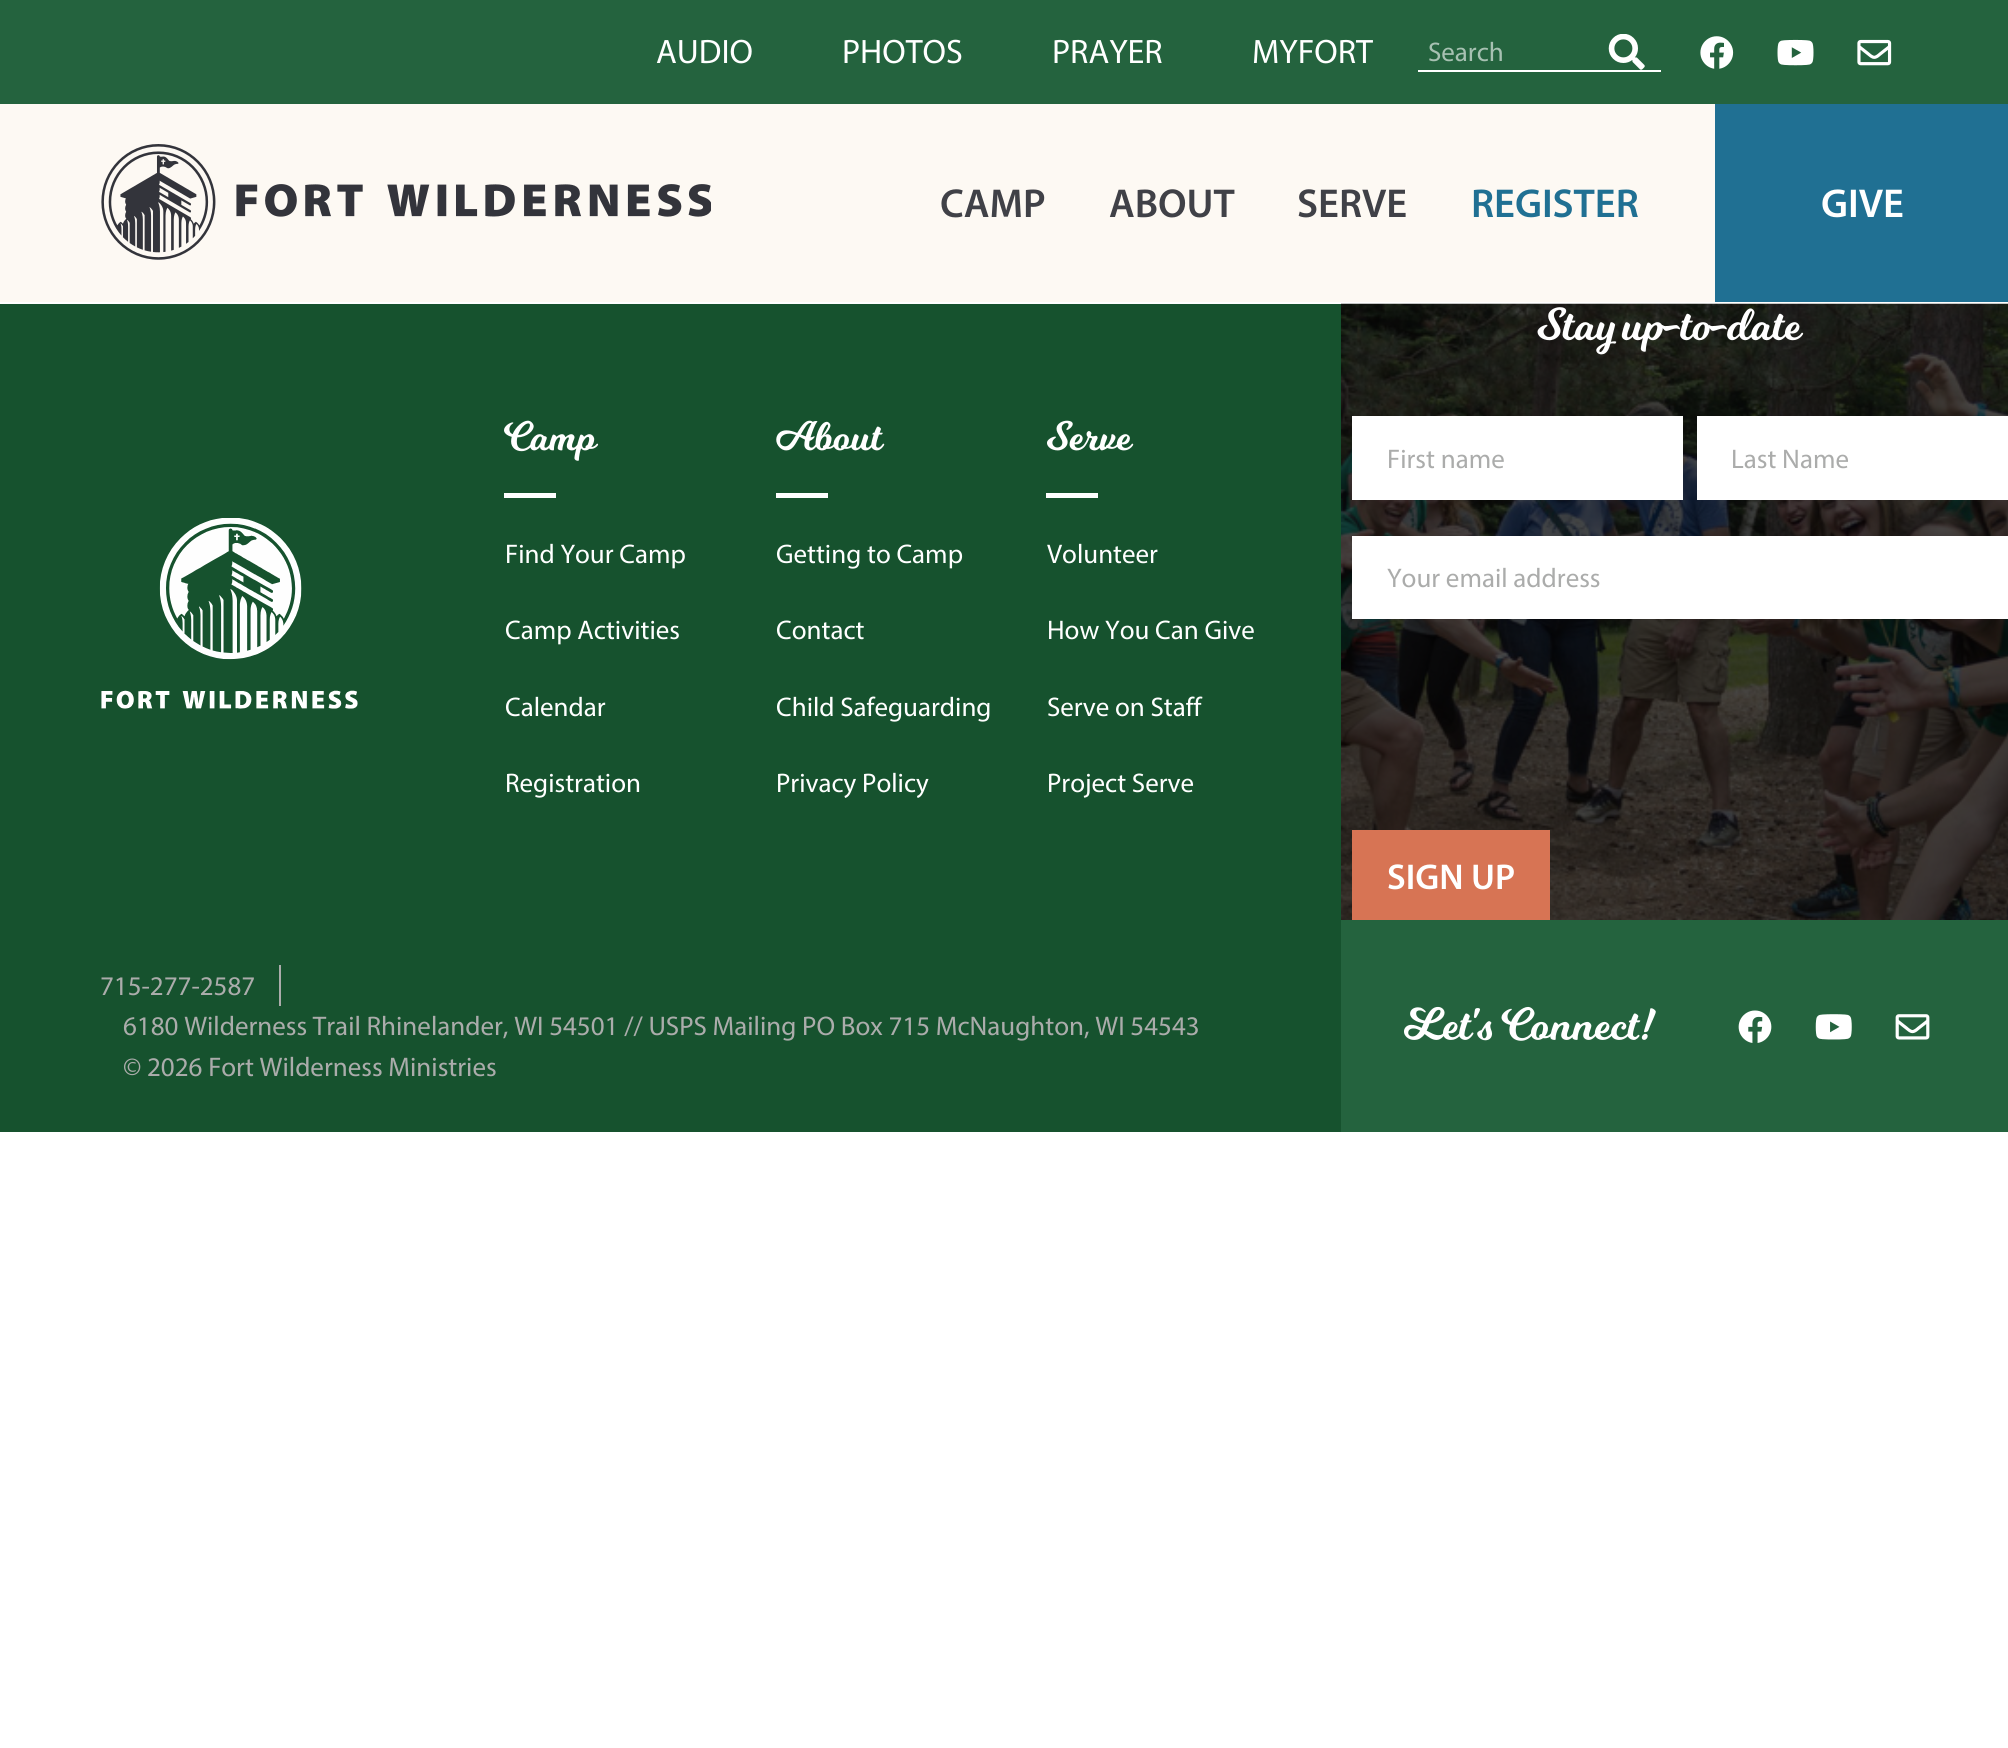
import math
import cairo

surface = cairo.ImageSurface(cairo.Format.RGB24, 2008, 1748)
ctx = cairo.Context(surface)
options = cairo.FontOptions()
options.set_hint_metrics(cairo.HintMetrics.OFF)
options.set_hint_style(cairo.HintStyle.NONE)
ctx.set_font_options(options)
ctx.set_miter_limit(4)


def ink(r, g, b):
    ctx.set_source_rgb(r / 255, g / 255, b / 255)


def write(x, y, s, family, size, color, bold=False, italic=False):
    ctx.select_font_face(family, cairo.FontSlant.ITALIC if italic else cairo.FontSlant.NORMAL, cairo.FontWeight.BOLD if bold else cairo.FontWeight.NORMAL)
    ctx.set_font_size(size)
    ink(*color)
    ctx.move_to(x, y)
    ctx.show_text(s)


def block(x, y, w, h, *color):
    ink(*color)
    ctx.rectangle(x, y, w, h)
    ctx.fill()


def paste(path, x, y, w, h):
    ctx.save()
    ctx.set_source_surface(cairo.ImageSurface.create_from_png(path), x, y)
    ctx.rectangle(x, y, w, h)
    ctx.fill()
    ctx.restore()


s1 = dict(family="Myriad", size=34, color=(255, 255, 255))
s2 = dict(family="Myriad", size=27, color=(167, 193, 178))
s3 = dict(family="Myriad SemiBold", size=40.5, color=(64, 65, 71))
s4 = dict(family="Myriad SemiBold", size=40.5, color=(32, 112, 147))
s5 = dict(family="Myriad SemiBold", size=40.5, color=(255, 255, 255))
s6 = dict(family="Myriad", size=27, color=(255, 255, 255))
s7 = dict(family="Myriad", size=27, color=(171, 172, 171))
s8 = dict(family="Myriad SemiBold", size=36, color=(255, 255, 255))

ink(255, 255, 255)
ctx.paint()
block(0, 0, 2008, 104, 36, 99, 62)
write(656, 63, "AUDIO", **s1)
write(842, 63, "PHOTOS", **s1)
write(1052, 63, "PRAYER", **s1)
write(1252, 63, "MYFORT", **s1)
block(1418, 70, 243, 2, 255, 255, 255)
write(1428, 61, "Search", **s2)
paste("pic1.png", 1608, 34, 37, 36)
paste("pic2.png", 1700, 36, 34, 33)
paste("pic3.png", 1777, 39, 37, 27)
paste("pic4.png", 1857, 39, 35, 27)
block(0, 104, 1715, 198, 253, 249, 243)
paste("pic5.png", 101, 144, 610, 116)
write(940, 217, "CAMP", **s3)
write(1109, 217, "ABOUT", **s3)
write(1297, 217, "SERVE", **s3)
write(1471, 217, "REGISTER", **s4)
block(1715, 104, 293, 198, 32, 112, 147)
write(1821, 217, "GIVE", **s5)
block(0, 304, 1341, 828, 22, 82, 46)
paste("pic6.png", 101, 518, 257, 191)
paste("pic7.png", 504, 420, 95, 41)
block(504, 493, 52, 5, 255, 255, 255)
write(505, 563, "Find Your Camp", **s6)
write(505, 639, "Camp Activities", **s6)
write(505, 716, "Calendar", **s6)
write(505, 792, "Registration", **s6)
paste("pic8.png", 776, 420, 109, 31)
block(776, 493, 52, 5, 255, 255, 255)
write(776, 563, "Getting to Camp", **s6)
write(776, 639, "Contact", **s6)
write(776, 716, "Child Safeguarding", **s6)
write(776, 792, "Privacy Policy", **s6)
paste("pic9.png", 1047, 420, 87, 31)
block(1046, 493, 52, 5, 255, 255, 255)
write(1047, 563, "Volunteer", **s6)
write(1047, 639, "How You Can Give", **s6)
write(1047, 716, "Serve on Staff", **s6)
write(1047, 792, "Project Serve", **s6)
paste("pic10.png", 1341, 303, 667, 617)
paste("pic11.png", 1537, 307, 267, 48)
block(1352, 416, 331, 84, 255, 255, 255)
write(1387, 468, "First name", **s7)
block(1697, 416, 311, 84, 255, 255, 255)
write(1731, 468, "Last Name", **s7)
block(1352, 536, 656, 83, 255, 255, 255)
write(1387, 587, "Your email address", **s7)
block(1352, 830, 198, 90, 215, 116, 84)
write(1387, 889, "SIGN UP", **s8)
block(279, 965, 2, 41, 171, 172, 171)
write(100, 995, "715-277-2587", **s7)
write(123, 1035, "6180 Wilderness Trail Rhinelander, WI 54501 // USPS Mailing PO Box 715 McNaughton, WI 54543", **s7)
write(123, 1076, "© 2026 Fort Wilderness Ministries", **s7)
block(1341, 920, 667, 212, 36, 99, 62)
paste("pic12.png", 1404, 1006, 252, 35)
paste("pic13.png", 1738, 1010, 34, 33)
paste("pic14.png", 1815, 1014, 37, 26)
paste("pic15.png", 1895, 1014, 35, 26)
surface.write_to_png("screenshot.png")
